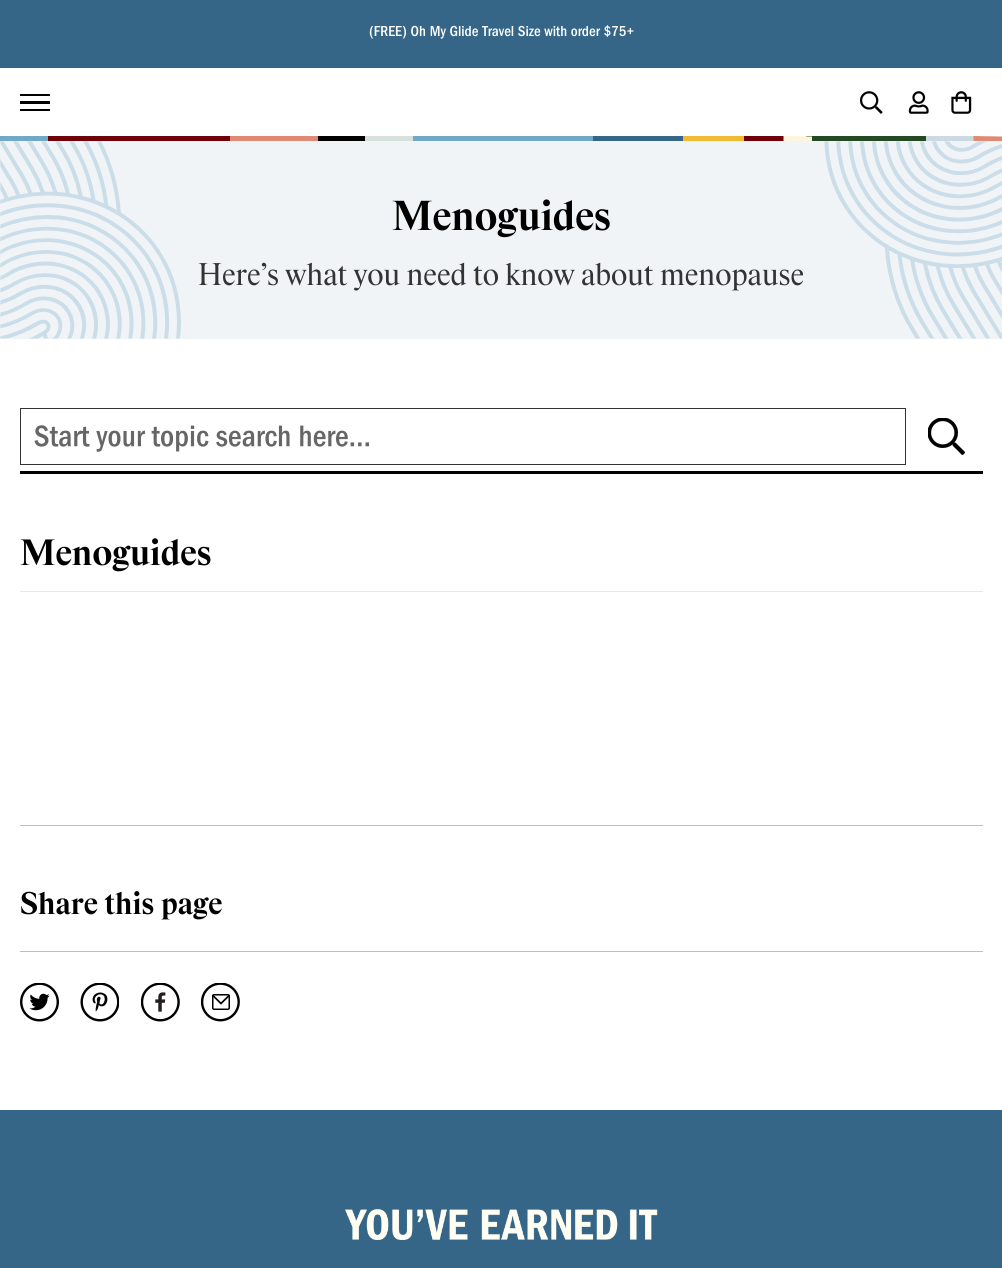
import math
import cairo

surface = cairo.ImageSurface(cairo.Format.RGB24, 1002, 1268)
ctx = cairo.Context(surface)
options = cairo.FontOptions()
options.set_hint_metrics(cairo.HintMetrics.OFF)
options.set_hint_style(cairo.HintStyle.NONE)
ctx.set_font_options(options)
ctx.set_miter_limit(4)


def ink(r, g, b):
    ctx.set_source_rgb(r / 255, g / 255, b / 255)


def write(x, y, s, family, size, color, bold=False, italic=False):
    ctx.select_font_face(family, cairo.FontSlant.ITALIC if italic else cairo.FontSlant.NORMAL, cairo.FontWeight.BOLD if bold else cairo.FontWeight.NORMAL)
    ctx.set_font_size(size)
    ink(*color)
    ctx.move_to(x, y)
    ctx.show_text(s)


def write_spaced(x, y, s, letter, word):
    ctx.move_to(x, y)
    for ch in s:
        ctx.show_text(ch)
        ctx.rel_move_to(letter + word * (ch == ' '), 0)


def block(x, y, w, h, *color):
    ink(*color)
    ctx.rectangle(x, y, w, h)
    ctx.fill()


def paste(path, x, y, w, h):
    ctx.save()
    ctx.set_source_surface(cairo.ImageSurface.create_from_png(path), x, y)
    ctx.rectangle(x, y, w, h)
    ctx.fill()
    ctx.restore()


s1 = dict(family="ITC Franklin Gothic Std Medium", size=15, color=(255, 255, 255))
s2 = dict(family="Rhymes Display", size=40, color=(0, 0, 0), bold=True)
s3 = dict(family="Rhymes Display", size=30, color=(51, 51, 51))
s4 = dict(family="Rhymes Display", size=35, color=(0, 0, 0), bold=True)

ink(255, 255, 255)
ctx.paint()
block(0, 0, 1002, 68, 53, 102, 135)
write(369, 36, "(FREE) Oh My Glide Travel Size with order $75+", **s1)
block(20, 94, 30, 2, 0, 0, 0)
block(20, 101, 30, 3, 0, 0, 0)
block(20, 109, 30, 2, 0, 0, 0)
paste("pic1.png", 860, 91, 23, 23)
paste("pic2.png", 908, 91, 21, 23)
paste("pic3.png", 951, 91, 21, 23)
block(48, 136, 182, 5, 111, 2, 6)
block(230, 136, 89, 5, 224, 138, 115)
block(593, 136, 91, 5, 53, 102, 135)
block(744, 136, 40, 5, 111, 2, 6)
block(806, 136, 128, 5, 37, 74, 35)
block(683, 136, 61, 5, 241, 186, 53)
block(318, 136, 48, 5, 0, 0, 0)
block(365, 136, 49, 5, 215, 225, 219)
block(926, 136, 50, 5, 204, 217, 224)
ctx.save()
ctx.rectangle(0, 136, 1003, 5)
ctx.clip()
ink(224, 138, 115)
ctx.new_path()
ctx.move_to(973.5, 142)
ctx.line_to(973.5, 136)
ctx.line_to(1002, 136.5)
ctx.line_to(1002, 142)
ctx.close_path()
ctx.fill()
ctx.restore()
block(0, 136, 48, 5, 112, 169, 199)
ctx.save()
ctx.rectangle(0, 136, 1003, 5)
ctx.clip()
ink(254, 245, 220)
ctx.new_path()
ctx.move_to(783.5, 142)
ctx.line_to(783.5, 136)
ctx.line_to(812, 136.5)
ctx.line_to(812, 142)
ctx.close_path()
ctx.fill()
ctx.restore()
block(413, 136, 180, 5, 112, 169, 199)
block(0, 141, 1002, 198, 240, 244, 246)
paste("pic4.png", 0, 141, 1002, 198)
write(392, 230, "Menoguides", **s2)
write(198, 285, "Here’s what you need to know about menopause", **s3)
block(20, 471, 963, 3, 0, 0, 0)
ctx.rectangle(20.5, 408.5, 885, 56)
ink(51, 51, 51)
ctx.set_line_width(1)
ctx.stroke()
paste("pic5.png", 34, 425, 335, 27)
paste("pic6.png", 928, 418, 37, 37)
write(20, 565, "Menoguides", **s4)
block(20, 591, 963, 1, 230, 234, 232)
block(20, 825, 963, 1, 191, 191, 191)
ctx.set_font_size(30)
ink(0, 0, 0)
write_spaced(20, 914, "Share this page", 0, 1)
block(20, 951, 963, 1, 191, 191, 191)
paste("pic7.png", 20, 983, 39, 39)
paste("pic8.png", 80, 983, 39, 39)
paste("pic9.png", 141, 983, 39, 39)
paste("pic10.png", 201, 983, 39, 39)
block(0, 1110, 1002, 158, 53, 102, 135)
paste("pic11.png", 345, 1209, 313, 31)
surface.write_to_png("screenshot.png")
